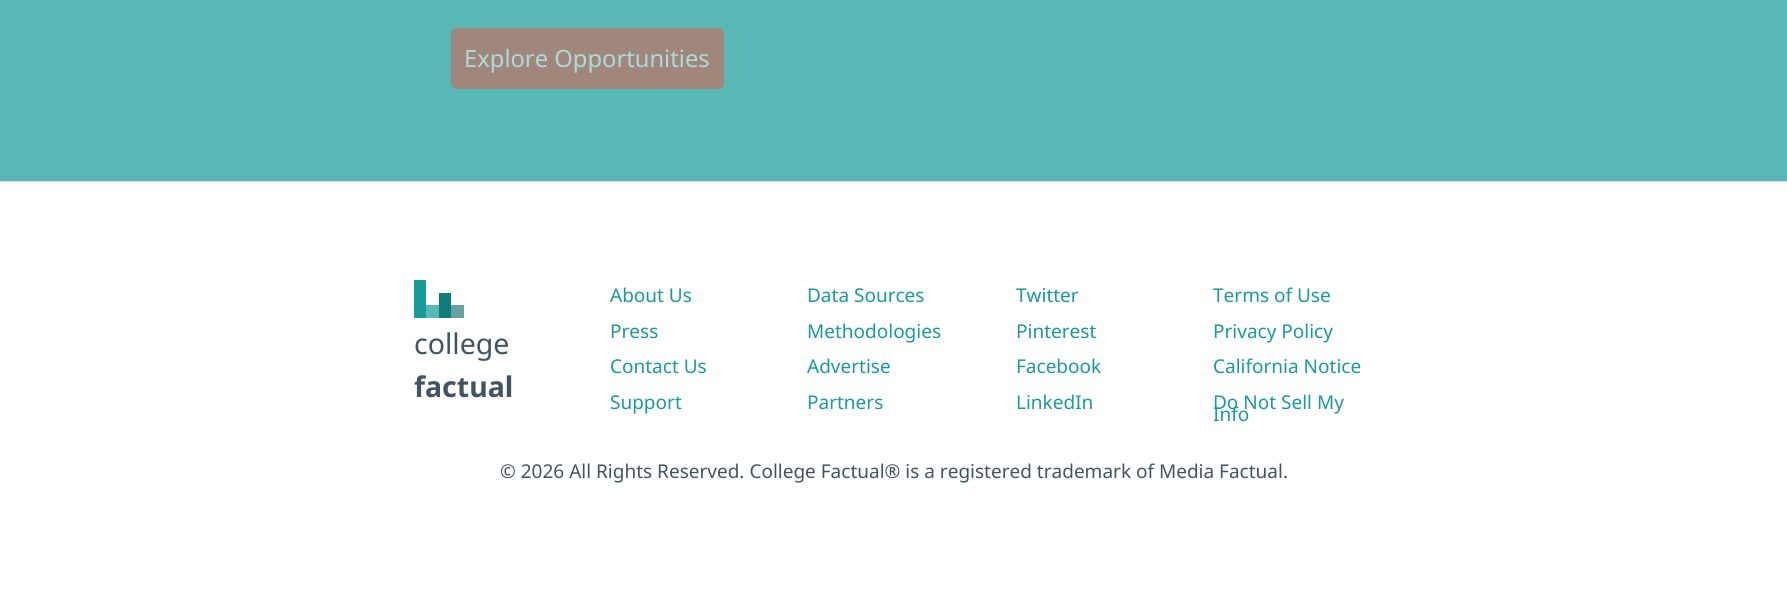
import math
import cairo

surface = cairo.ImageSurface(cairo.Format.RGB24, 1787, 604)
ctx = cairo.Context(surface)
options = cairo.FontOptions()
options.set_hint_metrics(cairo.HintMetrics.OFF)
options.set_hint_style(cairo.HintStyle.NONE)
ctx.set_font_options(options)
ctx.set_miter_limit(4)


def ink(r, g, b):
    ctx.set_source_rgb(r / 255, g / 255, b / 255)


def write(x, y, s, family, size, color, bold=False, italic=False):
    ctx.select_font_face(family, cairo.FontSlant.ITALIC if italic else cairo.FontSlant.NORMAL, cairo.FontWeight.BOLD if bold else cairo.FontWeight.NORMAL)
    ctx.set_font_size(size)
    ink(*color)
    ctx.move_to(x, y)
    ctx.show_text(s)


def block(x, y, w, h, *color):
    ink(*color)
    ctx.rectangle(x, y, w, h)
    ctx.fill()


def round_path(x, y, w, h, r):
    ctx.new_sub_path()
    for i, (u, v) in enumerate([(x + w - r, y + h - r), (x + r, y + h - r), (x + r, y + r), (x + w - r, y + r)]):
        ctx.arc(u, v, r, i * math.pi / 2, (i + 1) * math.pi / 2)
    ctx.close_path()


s1 = dict(family="Noto Sans", size=23.75, color=(171, 220, 218))
s2 = dict(family="Noto Sans", size=28.5, color=(65, 84, 98))
s3 = dict(family="Noto Sans", size=28.5, color=(65, 84, 98), bold=True)
s4 = dict(family="Noto Sans", size=19, color=(23, 155, 155))
s5 = dict(family="Noto Sans", size=19, color=(65, 84, 98))

ink(255, 255, 255)
ctx.paint()
block(0, 0, 1787, 181, 87, 184, 181)
ink(161, 134, 124)
round_path(451.5, 28.5, 272, 60, 5.5)
ctx.fill_preserve()
ctx.set_line_width(1)
ctx.stroke()
write(464, 67, "Explore Opportunities", **s1)
block(0, 181, 1787, 1, 222, 226, 230)
write(414, 354, "college", **s2)
block(414, 280, 12, 38, 23, 156, 156)
block(426, 305, 13, 13, 87, 184, 181)
block(439, 293, 12, 25, 16, 124, 122)
block(451, 305, 13, 13, 100, 163, 161)
write(414, 397, "factual", **s3)
write(610, 302, "About Us", **s4)
write(610, 338, "Press", **s4)
write(610, 373, "Contact Us", **s4)
write(610, 409, "Support", **s4)
write(807, 302, "Data Sources", **s4)
write(807, 338, "Methodologies", **s4)
write(807, 373, "Advertise", **s4)
write(807, 409, "Partners", **s4)
write(1016, 302, "Twitter", **s4)
write(1016, 338, "Pinterest", **s4)
write(1016, 373, "Facebook", **s4)
write(1016, 409, "LinkedIn", **s4)
write(1213, 302, "Terms of Use", **s4)
write(1213, 338, "Privacy Policy", **s4)
write(1213, 373, "California Notice", **s4)
write(1213, 409, "Do Not Sell My", **s4)
write(1213, 421, "Info", **s4)
write(500, 478, "© 2026 All Rights Reserved. College Factual® is a registered trademark of Media Factual.", **s5)
surface.write_to_png("screenshot.png")
